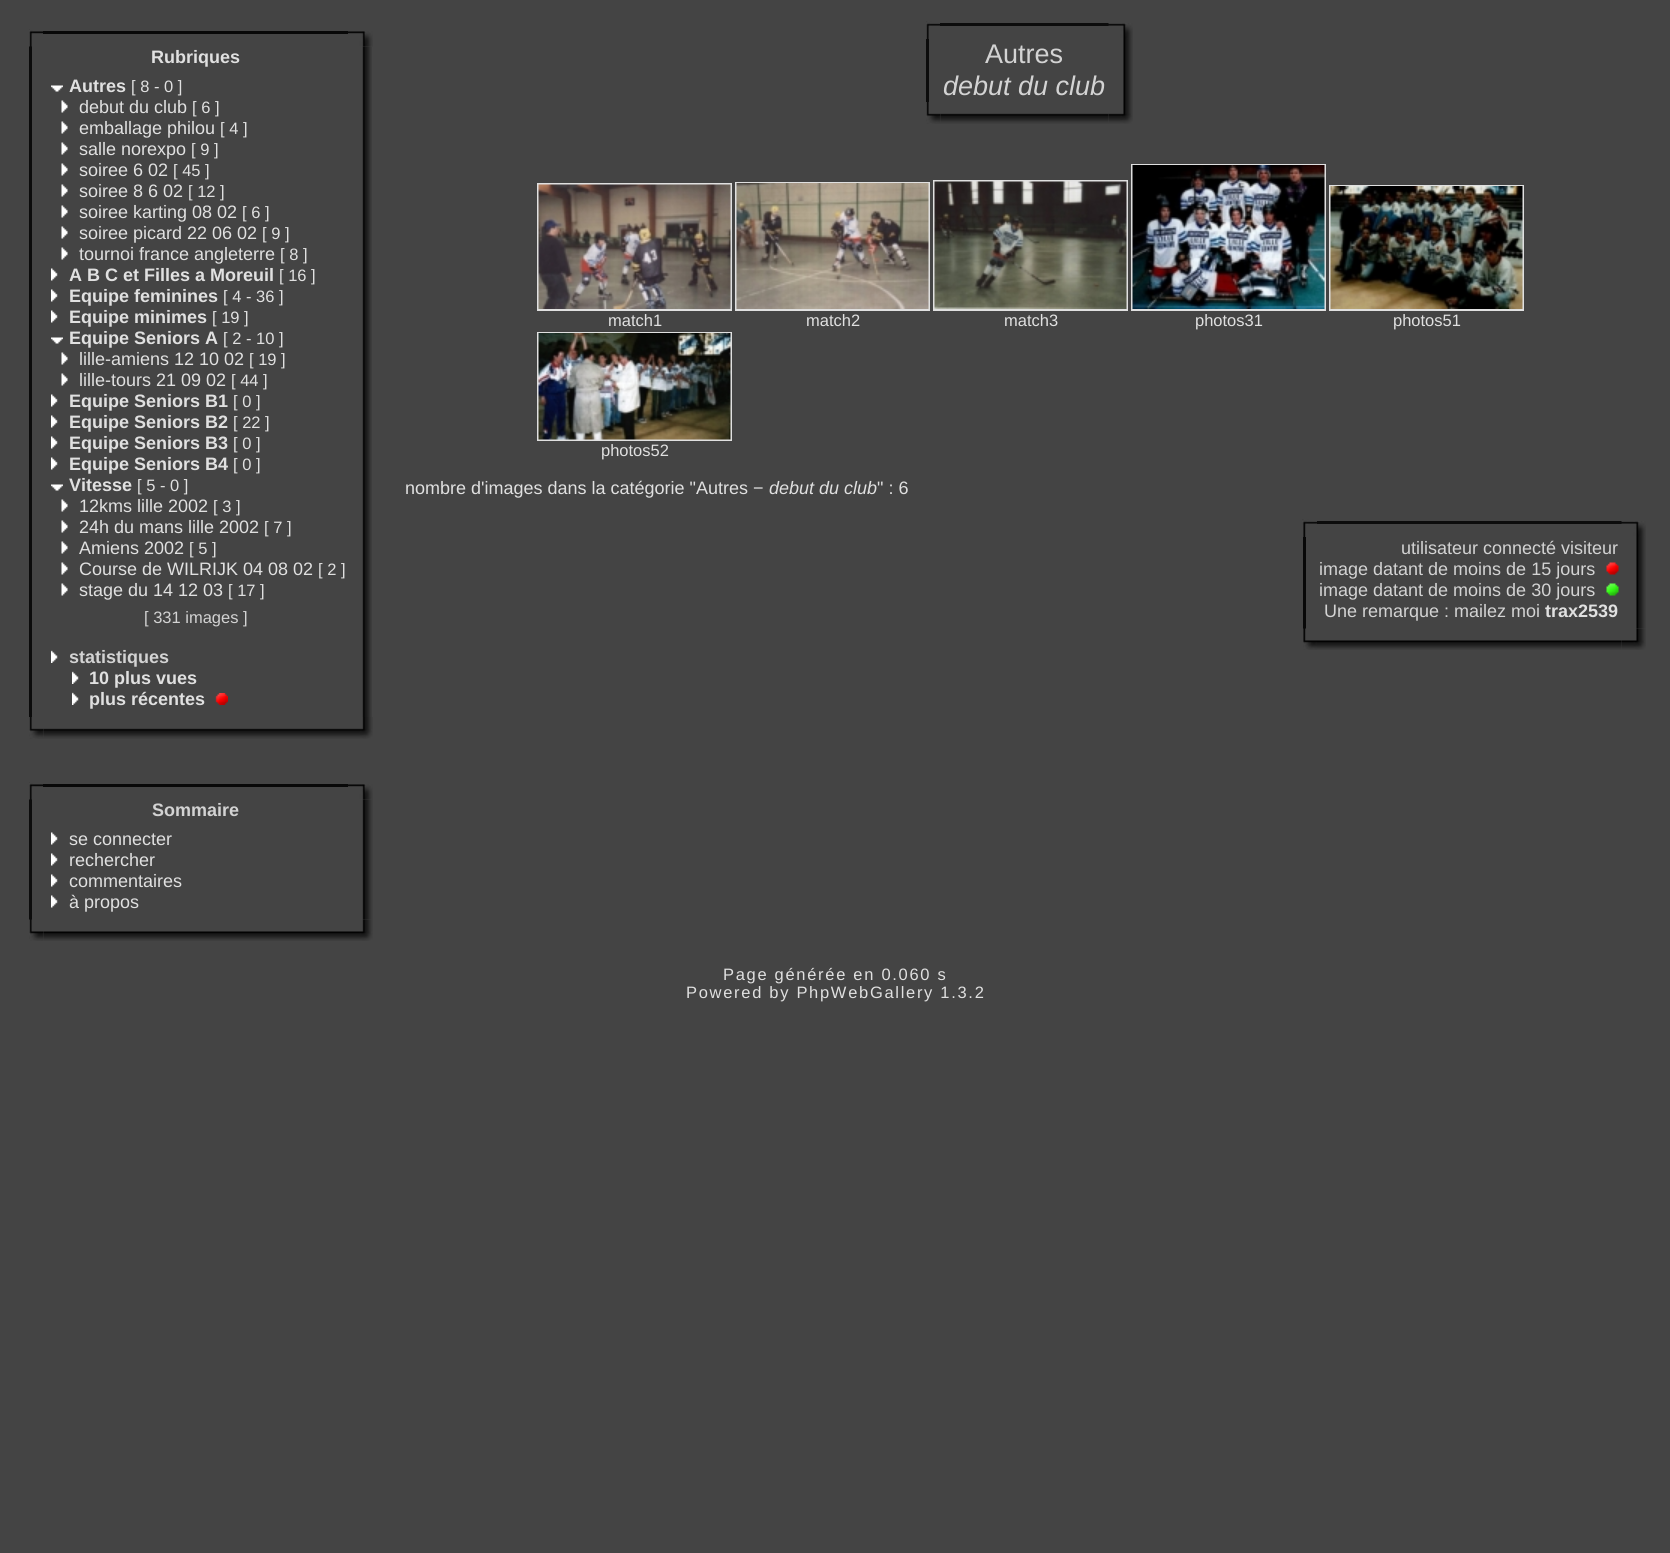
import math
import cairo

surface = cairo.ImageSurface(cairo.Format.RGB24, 1670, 1553)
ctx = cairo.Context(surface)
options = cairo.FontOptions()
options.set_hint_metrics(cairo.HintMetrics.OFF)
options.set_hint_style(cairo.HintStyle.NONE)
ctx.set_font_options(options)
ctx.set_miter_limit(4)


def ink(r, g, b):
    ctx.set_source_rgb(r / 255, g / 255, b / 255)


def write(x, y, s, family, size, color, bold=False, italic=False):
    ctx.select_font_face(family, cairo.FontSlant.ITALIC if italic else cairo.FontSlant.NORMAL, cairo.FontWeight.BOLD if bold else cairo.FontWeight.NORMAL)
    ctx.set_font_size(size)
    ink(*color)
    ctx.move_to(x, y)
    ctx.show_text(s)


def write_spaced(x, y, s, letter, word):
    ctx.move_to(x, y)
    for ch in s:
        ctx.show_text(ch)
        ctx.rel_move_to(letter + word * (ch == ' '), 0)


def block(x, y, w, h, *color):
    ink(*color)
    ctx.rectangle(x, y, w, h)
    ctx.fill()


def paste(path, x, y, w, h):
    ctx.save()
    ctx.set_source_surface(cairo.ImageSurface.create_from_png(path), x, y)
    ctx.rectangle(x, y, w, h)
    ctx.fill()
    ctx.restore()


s1 = dict(family="Liberation Sans", size=18, color=(224, 224, 224), bold=True)
s2 = dict(family="Liberation Sans", size=16.5, color=(224, 224, 224))
s3 = dict(family="Liberation Sans", size=18, color=(224, 224, 224))
s4 = dict(family="Liberation Sans", size=16.5, color=(211, 211, 211))
s5 = dict(family="Liberation Sans", size=18, color=(211, 211, 211), bold=True)
s6 = dict(family="Liberation Sans", size=27, color=(211, 211, 211))
s7 = dict(family="Liberation Sans", size=27, color=(211, 211, 211), italic=True)
s8 = dict(family="Liberation Sans", size=18, color=(224, 224, 224), italic=True)
s9 = dict(family="Liberation Sans", size=18, color=(211, 211, 211))

ink(68, 68, 68)
ctx.paint()
block(29, 46, 3, 671, 11, 11, 11)
paste("pic1.png", 29, 29, 15, 18)
block(43, 31, 305, 3, 8, 8, 8)
paste("pic8.png", 362, 46, 10, 671)
paste("pic2.png", 348, 31, 25, 16)
write(151, 63, "Rubriques", **s1)
paste("pic3.png", 51, 85, 12, 7)
write(69, 92, "Autres", **s1)
write(131, 92, "[ 8 - 0 ]", **s2)
paste("pic4.png", 61, 100, 7, 13)
write(79, 113, "debut du club", **s3)
write(192, 113, "[ 6 ]", **s2)
paste("pic4.png", 61, 121, 7, 13)
write(79, 134, "emballage philou", **s3)
write(220, 134, "[ 4 ]", **s2)
paste("pic4.png", 61, 142, 7, 13)
write(79, 155, "salle norexpo", **s3)
write(191, 155, "[ 9 ]", **s2)
paste("pic4.png", 61, 163, 7, 13)
write(79, 176, "soiree 6 02", **s3)
write(173, 176, "[ 45 ]", **s2)
paste("pic4.png", 61, 184, 7, 13)
write(79, 197, "soiree 8 6 02", **s3)
write(188, 197, "[ 12 ]", **s2)
paste("pic4.png", 61, 205, 7, 13)
write(79, 218, "soiree karting 08 02", **s3)
write(242, 218, "[ 6 ]", **s2)
paste("pic4.png", 61, 226, 7, 13)
write(79, 239, "soiree picard 22 06 02", **s3)
write(262, 239, "[ 9 ]", **s2)
paste("pic4.png", 61, 247, 7, 13)
write(79, 260, "tournoi france angleterre", **s3)
write(280, 260, "[ 8 ]", **s2)
paste("pic5.png", 51, 268, 7, 13)
write(69, 281, "A B C et Filles a Moreuil", **s1)
write(279, 281, "[ 16 ]", **s2)
paste("pic5.png", 51, 289, 7, 13)
write(69, 302, "Equipe feminines", **s1)
write(223, 302, "[ 4 - 36 ]", **s2)
paste("pic5.png", 51, 310, 7, 13)
write(69, 323, "Equipe minimes", **s1)
write(212, 323, "[ 19 ]", **s2)
paste("pic3.png", 51, 337, 12, 7)
write(69, 344, "Equipe Seniors A", **s1)
write(223, 344, "[ 2 - 10 ]", **s2)
paste("pic4.png", 61, 352, 7, 13)
write(79, 365, "lille-amiens 12 10 02", **s3)
write(249, 365, "[ 19 ]", **s2)
paste("pic4.png", 61, 373, 7, 13)
write(79, 386, "lille-tours 21 09 02", **s3)
write(231, 386, "[ 44 ]", **s2)
paste("pic5.png", 51, 394, 7, 13)
write(69, 407, "Equipe Seniors B1", **s1)
write(233, 407, "[ 0 ]", **s2)
paste("pic5.png", 51, 415, 7, 13)
write(69, 428, "Equipe Seniors B2", **s1)
write(233, 428, "[ 22 ]", **s2)
paste("pic5.png", 51, 436, 7, 13)
write(69, 449, "Equipe Seniors B3", **s1)
write(233, 449, "[ 0 ]", **s2)
paste("pic5.png", 51, 457, 7, 13)
write(69, 470, "Equipe Seniors B4", **s1)
write(233, 470, "[ 0 ]", **s2)
paste("pic3.png", 51, 484, 12, 7)
write(69, 491, "Vitesse", **s1)
write(137, 491, "[ 5 - 0 ]", **s2)
paste("pic4.png", 61, 499, 7, 13)
write(79, 512, "12kms lille 2002", **s3)
write(213, 512, "[ 3 ]", **s2)
paste("pic4.png", 61, 520, 7, 13)
write(79, 533, "24h du mans lille 2002", **s3)
write(264, 533, "[ 7 ]", **s2)
paste("pic4.png", 61, 541, 7, 13)
write(79, 554, "Amiens 2002", **s3)
write(189, 554, "[ 5 ]", **s2)
paste("pic4.png", 61, 562, 7, 13)
write(79, 575, "Course de WILRIJK 04 08 02", **s3)
write(318, 575, "[ 2 ]", **s2)
paste("pic4.png", 61, 583, 7, 13)
write(79, 596, "stage du 14 12 03", **s3)
write(228, 596, "[ 17 ]", **s2)
write(144, 623, "[ 331 images ]", **s4)
paste("pic6.png", 51, 650, 7, 13)
write(69, 663, "statistiques", **s5)
paste("pic6.png", 72, 671, 7, 13)
write(89, 684, "10 plus vues", **s1)
paste("pic6.png", 72, 692, 7, 13)
write(89, 705, "plus récentes", **s1)
paste("pic7.png", 215, 693, 13, 12)
paste("pic9.png", 29, 717, 15, 22)
paste("pic10.png", 43, 728, 305, 11)
paste("pic11.png", 348, 717, 25, 22)
block(29, 799, 3, 121, 12, 12, 12)
paste("pic1.png", 29, 782, 15, 18)
block(43, 784, 305, 3, 8, 8, 8)
paste("pic13.png", 362, 799, 11, 121)
paste("pic12.png", 348, 784, 25, 16)
write(152, 816, "Sommaire", **s5)
paste("pic5.png", 51, 832, 7, 13)
write(69, 845, "se connecter", **s3)
paste("pic5.png", 51, 853, 7, 13)
write(69, 866, "rechercher", **s3)
paste("pic5.png", 51, 874, 7, 13)
write(69, 887, "commentaires", **s3)
paste("pic5.png", 51, 895, 7, 13)
write(69, 908, "à propos", **s3)
paste("pic14.png", 29, 919, 15, 22)
paste("pic15.png", 43, 931, 305, 10)
paste("pic16.png", 348, 919, 25, 22)
paste("pic17.png", 926, 21, 15, 18)
block(940, 23, 169, 3, 12, 12, 12)
paste("pic18.png", 1108, 23, 25, 16)
block(926, 39, 3, 63, 12, 12, 12)
write(985, 63, "Autres", **s6)
write(943, 95, "debut du club", **s7)
paste("pic19.png", 1123, 39, 10, 63)
paste("pic9.png", 926, 102, 15, 22)
paste("pic20.png", 940, 113, 169, 11)
paste("pic21.png", 1108, 102, 25, 22)
ctx.rectangle(538, 184, 193, 126)
ink(224, 224, 224)
ctx.stroke()
paste("pic22.png", 538, 184, 193, 125)
write(608, 326, "match1", **s2)
ctx.rectangle(736, 183, 193, 127)
ctx.stroke()
paste("pic23.png", 736, 183, 193, 126)
write(806, 326, "match2", **s2)
ctx.rectangle(934, 181, 193, 129)
ctx.stroke()
paste("pic24.png", 934, 181, 193, 128)
write(1004, 326, "match3", **s2)
ctx.rectangle(1132, 165, 193, 145)
ctx.stroke()
paste("pic25.png", 1132, 165, 193, 144)
write(1195, 326, "photos31", **s2)
ctx.rectangle(1330, 186, 193, 124)
ctx.stroke()
paste("pic26.png", 1330, 186, 193, 123)
write(1393, 326, "photos51", **s2)
ctx.rectangle(538, 333, 193, 107)
ctx.stroke()
paste("pic27.png", 538, 333, 193, 107)
write(601, 456, "photos52", **s2)
write(405, 494, "nombre d'images dans la catégorie \"Autres −", **s3)
write(769, 494, "debut du club", **s8)
write(877, 494, "\" : 6", **s3)
paste("pic28.png", 1302, 519, 15, 18)
block(1317, 521, 305, 3, 12, 12, 12)
paste("pic18.png", 1621, 521, 25, 16)
block(1303, 537, 3, 92, 8, 8, 8)
write(1401, 554, "utilisateur connecté visiteur", **s9)
write(1319, 575, "image datant de moins de 15 jours", **s9)
paste("pic29.png", 1606, 562, 13, 13)
write(1319, 596, "image datant de moins de 30 jours", **s9)
paste("pic30.png", 1606, 583, 13, 13)
write(1324, 617, "Une remarque : mailez moi", **s9)
write(1545, 617, "trax2539", **s1)
paste("pic31.png", 1636, 537, 10, 92)
paste("pic32.png", 1303, 628, 14, 22)
paste("pic33.png", 1317, 640, 305, 10)
paste("pic34.png", 1621, 628, 25, 22)
ctx.select_font_face("Liberation Sans")
ctx.set_font_size(16.5)
write_spaced(723, 980, "Page générée en 0.060 s", 1.7, 0)
write_spaced(686, 998, "Powered by PhpWebGallery 1.3.2", 1.7, 0)
surface.write_to_png("screenshot.png")
